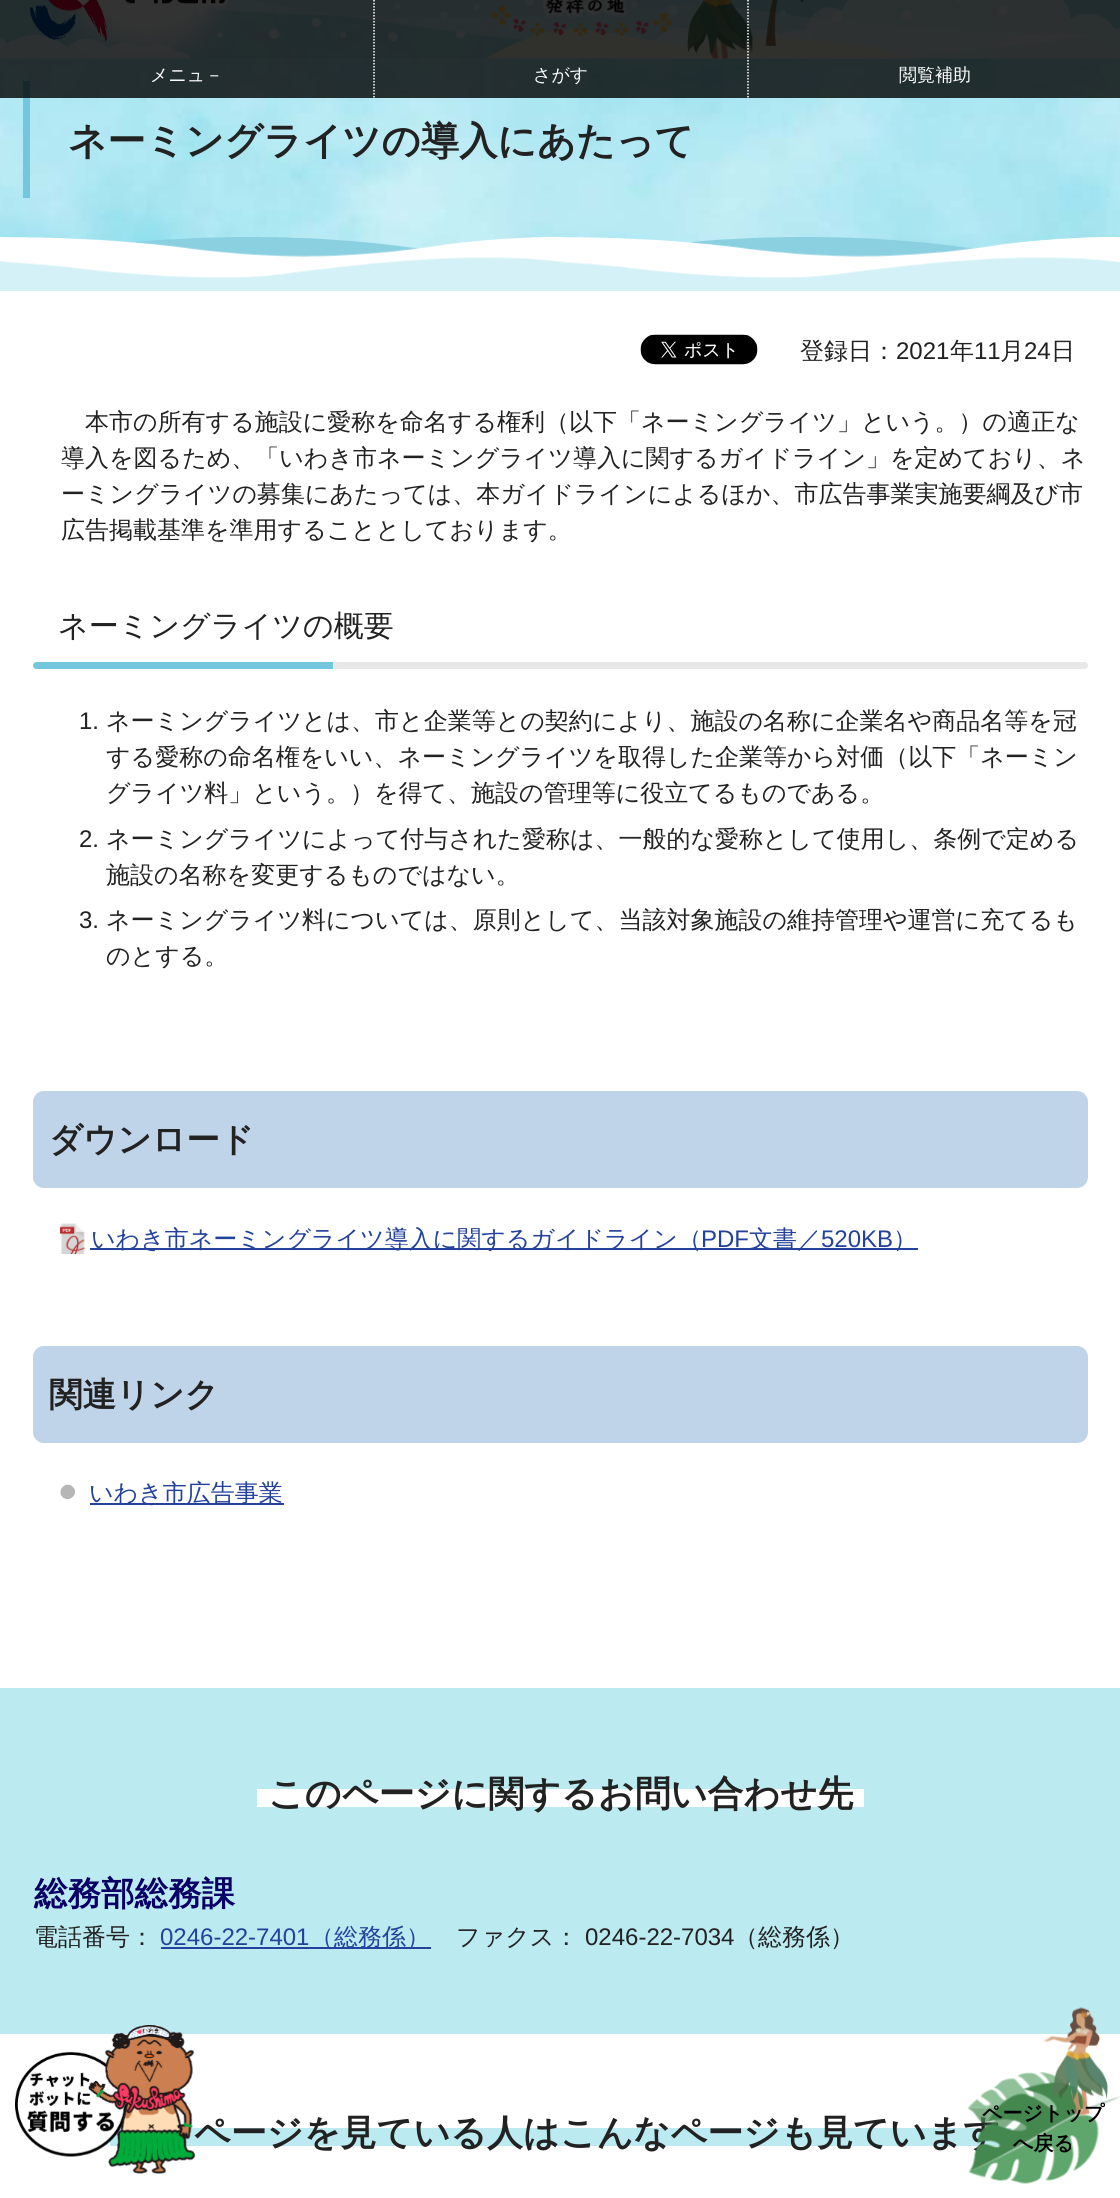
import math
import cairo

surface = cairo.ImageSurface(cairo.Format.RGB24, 1120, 2198)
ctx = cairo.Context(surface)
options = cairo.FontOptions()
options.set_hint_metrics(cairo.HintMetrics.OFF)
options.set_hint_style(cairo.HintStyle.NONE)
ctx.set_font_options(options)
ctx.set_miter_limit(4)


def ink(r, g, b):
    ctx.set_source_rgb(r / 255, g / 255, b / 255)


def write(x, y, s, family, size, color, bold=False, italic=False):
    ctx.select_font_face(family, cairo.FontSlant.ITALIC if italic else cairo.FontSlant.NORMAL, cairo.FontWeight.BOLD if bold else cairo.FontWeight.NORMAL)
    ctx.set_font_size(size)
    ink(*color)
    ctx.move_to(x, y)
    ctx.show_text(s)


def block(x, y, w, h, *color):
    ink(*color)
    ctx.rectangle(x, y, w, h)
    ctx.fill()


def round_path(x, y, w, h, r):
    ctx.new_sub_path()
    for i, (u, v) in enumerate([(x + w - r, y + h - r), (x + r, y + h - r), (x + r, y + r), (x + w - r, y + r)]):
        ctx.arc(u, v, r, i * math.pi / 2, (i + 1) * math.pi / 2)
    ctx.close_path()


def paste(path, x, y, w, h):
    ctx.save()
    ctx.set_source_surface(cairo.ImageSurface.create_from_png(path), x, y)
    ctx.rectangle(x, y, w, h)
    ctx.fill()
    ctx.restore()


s1 = dict(family="WenQuanYi Zen Hei Medium", size=18, color=(255, 255, 255))
s2 = dict(family="WenQuanYi Zen Hei", size=38.4, color=(34, 34, 34), bold=True)
s3 = dict(family="WenQuanYi Zen Hei Medium", size=24, color=(34, 34, 34))
s4 = dict(family="Liberation Sans", size=24, color=(34, 34, 34))
s5 = dict(family="WenQuanYi Zen Hei Medium", size=30, color=(34, 34, 34))
s6 = dict(family="WenQuanYi Zen Hei", size=33.5, color=(34, 34, 34), bold=True)
s7 = dict(family="WenQuanYi Zen Hei Medium", size=24, color=(36, 66, 155))
s8 = dict(family="Liberation Sans", size=24, color=(36, 66, 155))
s9 = dict(family="WenQuanYi Zen Hei", size=36, color=(34, 34, 34), bold=True)
s10 = dict(family="WenQuanYi Zen Hei", size=33.5, color=(11, 0, 102), bold=True)
s11 = dict(family="WenQuanYi Zen Hei", size=20, color=(0, 0, 0), bold=True)

ink(255, 255, 255)
ctx.paint()
paste("pic1.png", 0, 0, 1120, 249)
paste("pic2.png", 0, 0, 1120, 59)
paste("pic3.png", 485, 0, 428, 59)
paste("pic4.png", 54, 0, 186, 59)
paste("pic5.png", 30, 0, 198, 42)
paste("pic6.png", 492, 0, 180, 36)
block(23, 81, 7, 117, 114, 199, 220)
ctx.set_source_rgba(0, 0, 0, 0.8)
ctx.rectangle(0, 0, 374, 98)
ctx.fill()
write(150, 81, "メニュ－", **s1)
ctx.set_source_rgba(0, 0, 0, 0.8)
ctx.rectangle(374, 0, 373, 98)
ctx.fill()
ctx.new_path()
ctx.move_to(374, 0)
ctx.line_to(374, 97.5)
ink(255, 255, 255)
ctx.set_line_width(1.5)
ctx.set_dash([1.5, 1.5])
ctx.stroke()
write(533, 81, "さがす", **s1)
ctx.set_source_rgba(0, 0, 0, 0.8)
ctx.rectangle(747, 0, 373, 98)
ctx.fill()
ctx.new_path()
ctx.move_to(748, 0)
ctx.line_to(748, 97.5)
ink(255, 255, 255)
ctx.stroke()
write(899, 81, "閲覧補助", **s1)
paste("pic7.png", 0, 237, 1120, 54)
write(68, 154, "ネーミングライツの導入にあたって", **s2)
paste("pic8.png", 640, 334, 118, 31)
write(800, 359, "登録日：", **s3)
write(896, 359, "2021", **s4)
write(950, 359, "年", **s3)
write(974, 359, "11", **s4)
write(1000, 359, "月", **s3)
write(1024, 359, "24", **s4)
write(1051, 359, "日", **s3)
write(85, 430, "本市の所有する施設に愛称を命名する権利（以下「ネーミングライツ」という。）の適正な", **s3)
write(61, 466, "導入を図るため、「いわき市ネーミングライツ導入に関するガイドライン」を定めており、ネ", **s3)
write(61, 502, "ーミングライツの募集にあたっては、本ガイドラインによるほか、市広告事業実施要綱及び市", **s3)
write(61, 538, "広告掲載基準を準用することとしております。", **s3)
write(58, 636, "ネーミングライツの概要", **s5)
ink(114, 199, 220)
ctx.new_path()
ctx.move_to(36.5, 662)
ctx.line_to(333, 662)
ctx.line_to(333, 669)
ctx.line_to(36.5, 669)
ctx.curve_to(34.5, 669, 33, 667.5, 33, 665.5)
ctx.curve_to(33, 663.5, 34.5, 662, 36.5, 662)
ctx.close_path()
ctx.fill()
ink(232, 232, 232)
ctx.new_path()
ctx.move_to(333, 662)
ctx.line_to(1084.5, 662)
ctx.curve_to(1086.5, 662, 1088, 663.5, 1088, 665.5)
ctx.curve_to(1088, 667.5, 1086.5, 669, 1084.5, 669)
ctx.line_to(333, 669)
ctx.close_path()
ctx.fill()
write(79, 729, "1.", **s4)
write(106, 729, "ネーミングライツとは、市と企業等との契約により、施設の名称に企業名や商品名等を冠", **s3)
write(106, 765, "する愛称の命名権をいい、ネーミングライツを取得した企業等から対価（以下「ネーミン", **s3)
write(106, 801, "グライツ料」という。）を得て、施設の管理等に役立てるものである。", **s3)
write(79, 847, "2.", **s4)
write(106, 847, "ネーミングライツによって付与された愛称は、一般的な愛称として使用し、条例で定める", **s3)
write(106, 883, "施設の名称を変更するものではない。", **s3)
write(79, 928, "3.", **s4)
write(106, 928, "ネーミングライツ料については、原則として、当該対象施設の維持管理や運営に充てるも", **s3)
write(106, 964, "のとする。", **s3)
ink(191, 212, 233)
round_path(33, 1091, 1055, 97, 11)
ctx.fill()
write(49, 1151, "ダウンロード", **s6)
paste("pic9.png", 60, 1223, 25, 31)
block(90, 1248, 828, 2, 36, 66, 155)
write(91, 1247, "いわき市ネーミングライツ導入に関するガイドライン（", **s7)
write(701, 1247, "PDF", **s8)
write(749, 1247, "文書／", **s7)
write(821, 1247, "520KB", **s8)
write(893, 1247, "）", **s7)
ink(191, 212, 233)
round_path(33, 1346, 1055, 97, 11)
ctx.fill()
write(49, 1406, "関連リンク", **s6)
ink(182, 182, 182)
ctx.new_path()
ctx.move_to(73, 1487)
ctx.curve_to(79.5, 1493.5, 69.5, 1503.5, 62.5, 1497)
ctx.curve_to(56, 1490.5, 66, 1480, 73, 1487)
ctx.close_path()
ctx.fill()
block(90, 1503, 194, 2, 36, 66, 155)
write(89, 1501, "いわき市広告事業", **s7)
block(0, 1688, 1120, 346, 187, 234, 240)
gradient = cairo.LinearGradient(560, 1814, 560, 1773)
gradient.add_color_stop_rgba(0, 0.733, 0.918, 0.941, 1)
gradient.add_color_stop_rgba(0.18, 0.733, 0.918, 0.941, 1)
gradient.add_color_stop_rgba(0.18, 1, 1, 1, 1)
gradient.add_color_stop_rgba(0.62, 1, 1, 1, 1)
gradient.add_color_stop_rgba(0.62, 0.733, 0.918, 0.941, 1)
ctx.set_source(gradient)
ctx.rectangle(257, 1789, 607, 18)
ctx.fill()
write(268, 1806, "このページに関するお問い合わせ先", **s9)
write(34, 1905, "総務部総務課", **s10)
write(34, 1945, "電話番号：", **s3)
write(160, 1945, "0246-22-7401", **s8)
block(161, 1947, 270, 2, 36, 66, 155)
write(310, 1945, "（総務係）", **s7)
write(456, 1945, "ファクス：", **s3)
write(585, 1945, "0246-22-7034", **s4)
write(734, 1945, "（総務係）", **s3)
gradient = cairo.LinearGradient(560, 2153, 560, 2112)
gradient.add_color_stop_rgba(0, 1, 1, 1, 1)
gradient.add_color_stop_rgba(0.18, 1, 1, 1, 1)
gradient.add_color_stop_rgba(0.18, 0.733, 0.918, 0.941, 1)
gradient.add_color_stop_rgba(0.62, 0.733, 0.918, 0.941, 1)
gradient.add_color_stop_rgba(0.62, 1, 1, 1, 1)
ctx.set_source(gradient)
ctx.rectangle(110, 2128, 901, 18)
ctx.fill()
write(194, 2145, "ページを見ている人はこんなページも見ています", **s9)
paste("pic10.png", 15, 2025, 180, 149)
paste("pic11.png", 967, 2072, 153, 112)
paste("pic12.png", 1044, 2007, 64, 108)
write(982, 2120, "ページトップ", **s11)
write(1013, 2150, "へ戻る", **s11)
surface.write_to_png("screenshot.png")
